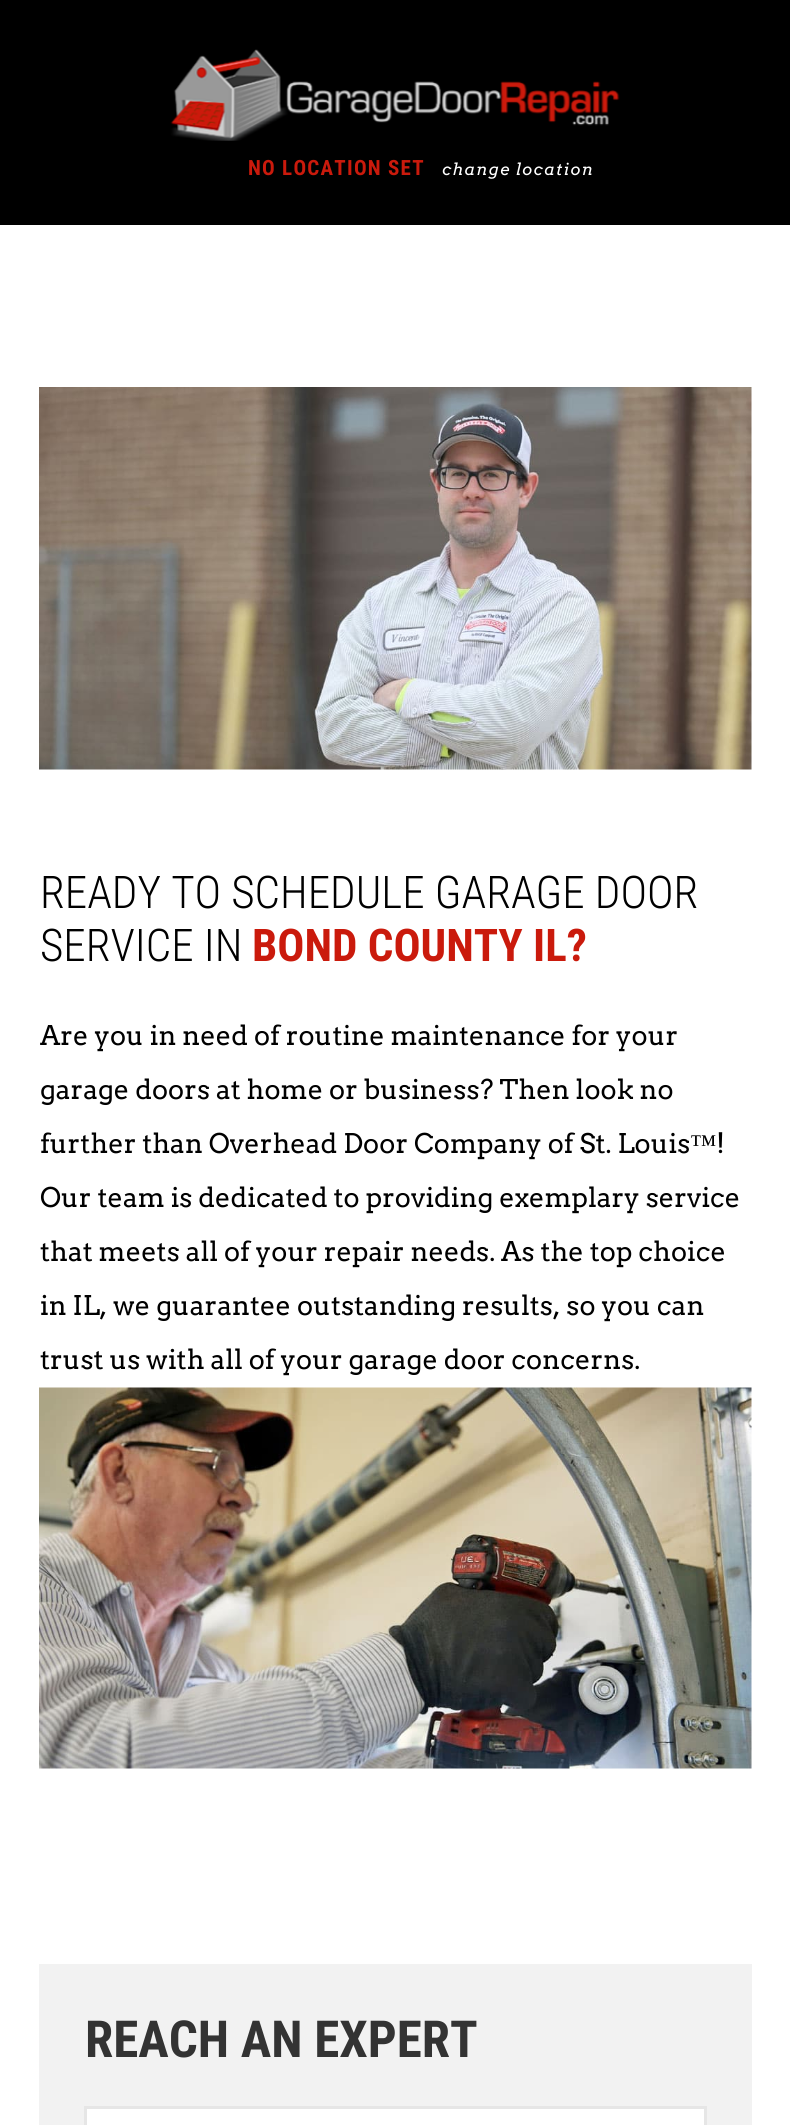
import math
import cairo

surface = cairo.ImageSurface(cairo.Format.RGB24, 790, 2125)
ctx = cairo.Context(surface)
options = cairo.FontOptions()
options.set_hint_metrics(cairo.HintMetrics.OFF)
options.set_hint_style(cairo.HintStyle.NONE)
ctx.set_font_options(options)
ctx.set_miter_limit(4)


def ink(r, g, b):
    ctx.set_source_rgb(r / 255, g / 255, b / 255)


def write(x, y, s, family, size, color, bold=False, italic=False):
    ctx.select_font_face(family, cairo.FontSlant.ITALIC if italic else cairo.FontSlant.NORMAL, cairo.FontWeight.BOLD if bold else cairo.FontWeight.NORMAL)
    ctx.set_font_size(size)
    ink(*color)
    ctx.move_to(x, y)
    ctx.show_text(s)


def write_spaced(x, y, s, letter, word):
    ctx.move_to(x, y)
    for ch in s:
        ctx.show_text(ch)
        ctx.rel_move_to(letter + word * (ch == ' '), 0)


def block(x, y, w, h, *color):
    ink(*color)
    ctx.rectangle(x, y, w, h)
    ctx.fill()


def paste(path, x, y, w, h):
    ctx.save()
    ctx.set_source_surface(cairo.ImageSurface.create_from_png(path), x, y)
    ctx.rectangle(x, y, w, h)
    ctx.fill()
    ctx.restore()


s1 = dict(family="Roboto Condensed Light", size=45, color=(0, 0, 0))
s2 = dict(family="Roboto Condensed", size=45, color=(202, 26, 12), bold=True)
s3 = dict(family="Arvo", size=27, color=(0, 0, 0))
s4 = dict(family="Liberation Serif", size=27, color=(0, 0, 0))
s5 = dict(family="Roboto Condensed", size=51, color=(51, 51, 51), bold=True)

ink(255, 255, 255)
ctx.paint()
block(0, 0, 790, 225, 0, 0, 0)
paste("pic1.png", 170, 49, 450, 92)
ctx.select_font_face("Roboto Condensed", cairo.FontSlant.NORMAL, cairo.FontWeight.BOLD)
ctx.set_font_size(21)
ink(202, 26, 12)
write_spaced(248, 175, "NO LOCATION SET", 1.25, 0)
ctx.select_font_face("Arvo", cairo.FontSlant.ITALIC)
ctx.set_font_size(16.5)
ink(255, 255, 255)
write_spaced(442, 175, "change location", 1.3, 0)
paste("pic2.png", 39, 387, 713, 383)
write(40, 908, "READY TO SCHEDULE GARAGE DOOR", **s1)
write(40, 961, "SERVICE IN", **s1)
write(252, 961, "BOND COUNTY IL?", **s2)
write(40, 1045, "Are you in need of routine maintenance for your", **s3)
write(40, 1099, "garage doors at home or business? Then look no", **s3)
write(40, 1153, "further than Overhead Door Company of St. Louis", **s3)
write(690, 1153, "™", **s4)
write(716, 1153, "!", **s3)
write(40, 1207, "Our team is dedicated to providing exemplary service", **s3)
write(40, 1261, "that meets all of your repair needs. As the top choice", **s3)
write(40, 1315, "in IL, we guarantee outstanding results, so you can", **s3)
write(40, 1369, "trust us with all of your garage door concerns.", **s3)
paste("pic3.png", 39, 1387, 713, 382)
block(39, 1964, 713, 161, 242, 242, 242)
write(85, 2057, "REACH AN EXPERT", **s5)
ink(255, 255, 255)
ctx.rectangle(85.5, 2107.5, 620, 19)
ctx.fill_preserve()
ink(230, 230, 230)
ctx.set_line_width(3)
ctx.stroke()
surface.write_to_png("screenshot.png")
